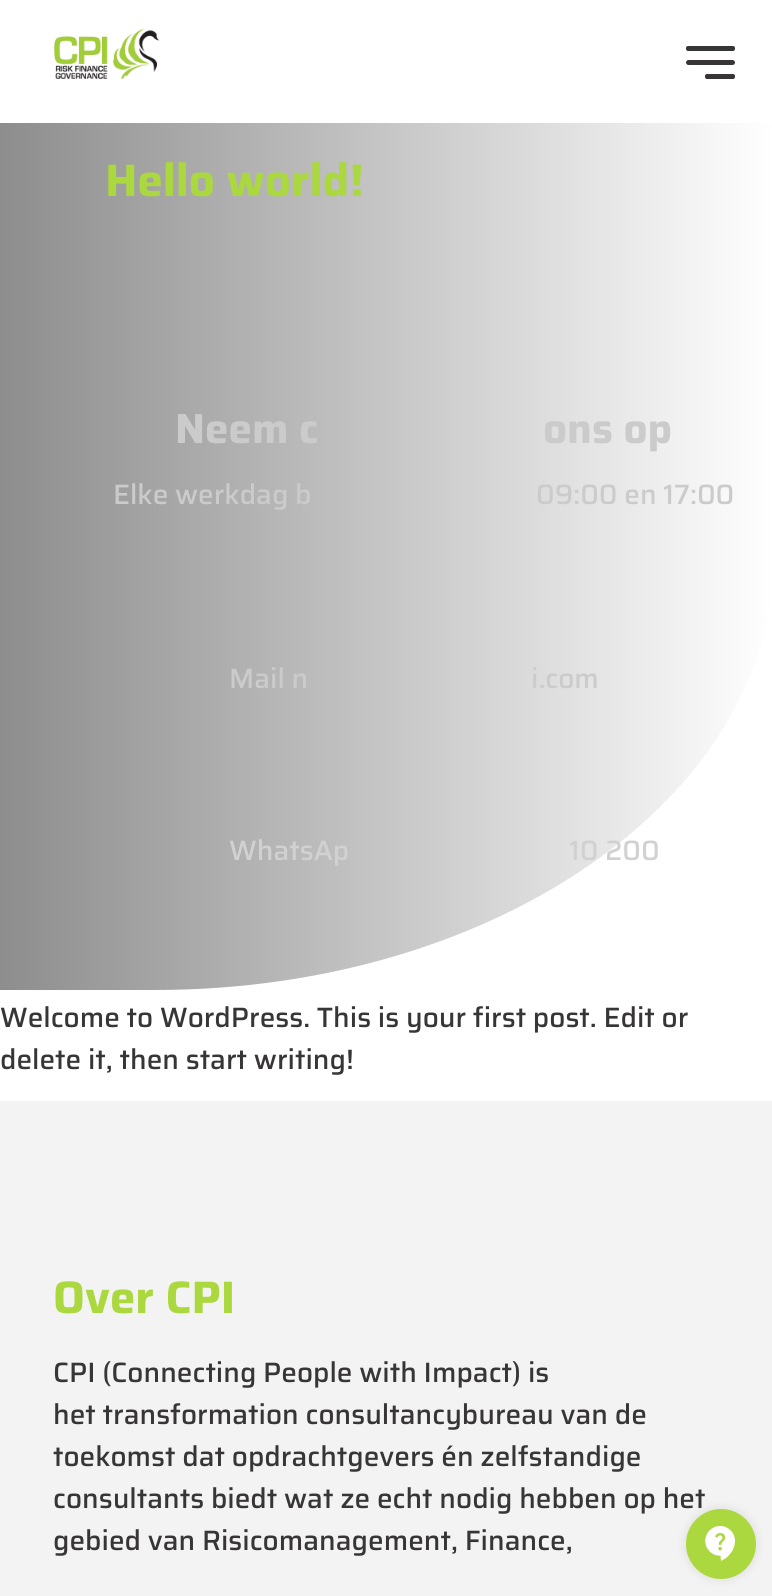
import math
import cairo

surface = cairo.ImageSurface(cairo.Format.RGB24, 772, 1596)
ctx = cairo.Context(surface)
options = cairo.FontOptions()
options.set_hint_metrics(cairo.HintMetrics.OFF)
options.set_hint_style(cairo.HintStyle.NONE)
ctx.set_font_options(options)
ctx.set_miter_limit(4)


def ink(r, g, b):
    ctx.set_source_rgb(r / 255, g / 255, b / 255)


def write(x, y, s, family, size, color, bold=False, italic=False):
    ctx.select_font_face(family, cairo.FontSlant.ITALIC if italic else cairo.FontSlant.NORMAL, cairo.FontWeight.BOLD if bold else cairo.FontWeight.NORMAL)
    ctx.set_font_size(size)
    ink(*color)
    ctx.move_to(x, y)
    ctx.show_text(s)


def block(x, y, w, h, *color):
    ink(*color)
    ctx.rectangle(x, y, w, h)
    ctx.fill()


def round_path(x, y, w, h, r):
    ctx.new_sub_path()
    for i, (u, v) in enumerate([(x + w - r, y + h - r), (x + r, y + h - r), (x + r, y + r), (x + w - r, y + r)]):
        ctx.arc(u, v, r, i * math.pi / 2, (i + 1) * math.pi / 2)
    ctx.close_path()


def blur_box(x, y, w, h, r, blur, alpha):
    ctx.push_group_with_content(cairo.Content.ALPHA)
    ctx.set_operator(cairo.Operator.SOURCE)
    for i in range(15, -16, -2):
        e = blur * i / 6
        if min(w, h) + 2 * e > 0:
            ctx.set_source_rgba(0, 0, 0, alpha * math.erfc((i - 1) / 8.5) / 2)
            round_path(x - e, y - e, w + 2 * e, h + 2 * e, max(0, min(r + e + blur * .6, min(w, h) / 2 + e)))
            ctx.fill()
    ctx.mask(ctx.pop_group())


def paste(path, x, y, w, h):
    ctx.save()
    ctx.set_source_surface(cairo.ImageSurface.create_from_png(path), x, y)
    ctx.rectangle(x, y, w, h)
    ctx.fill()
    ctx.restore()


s1 = dict(family="Saira", size=45.5, color=(171, 215, 63), bold=True)
s2 = dict(family="Saira", size=42, color=(203, 203, 203), bold=True)
s3 = dict(family="Saira Medium", size=28, color=(203, 203, 203))
s4 = dict(family="Saira Medium", size=28, color=(209, 209, 209))
s5 = dict(family="Saira Medium", size=28, color=(55, 53, 53))

ink(255, 255, 255)
ctx.paint()
paste("pic1.png", 54, 28, 106, 51)
ink(55, 53, 53)
round_path(686, 60, 49, 5, 2.5)
ctx.fill()
round_path(686, 46, 49, 5, 2)
ctx.fill()
round_path(705, 74, 30, 5, 2)
ctx.fill()
ctx.save()
ctx.rectangle(0, 123, 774, 875)
ctx.clip()
gradient = cairo.LinearGradient(0, 557, 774, 557)
gradient.add_color_stop_rgba(0, 0.553, 0.553, 0.553, 1)
gradient.add_color_stop_rgba(1, 1, 1, 1, 1)
ctx.set_source(gradient)
ctx.new_path()
ctx.move_to(0, 122)
ctx.line_to(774, 122)
ctx.line_to(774, 556)
ctx.curve_to(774, 796, 496, 990, 155, 990)
ctx.line_to(0, 990)
ctx.close_path()
ctx.fill()
ctx.restore()
write(105, 196, "Hello world!", **s1)
write(175, 443, "Neem c", **s2)
write(543, 443, "ons op", **s2)
write(113, 504, "Elke werkdag b", **s3)
write(536, 504, "09:00 en 17:00", **s3)
write(229, 688, "Mail n", **s3)
write(531, 688, "i.com", **s3)
write(229, 860, "WhatsAp", **s4)
write(569, 860, "10 200", **s4)
write(0, 1027, "Welcome to WordPress. This is your first post. Edit or", **s5)
write(0, 1069, "delete it, then start writing!", **s5)
block(0, 1101, 772, 495, 243, 243, 243)
write(53, 1313, "Over CPI", **s1)
write(53, 1382, "CPI (Connecting People with Impact) is", **s5)
write(53, 1424, "het transformation consultancybureau van de", **s5)
write(53, 1466, "toekomst dat opdrachtgevers én zelfstandige", **s5)
write(53, 1508, "consultants biedt wat ze echt nodig hebben op het", **s5)
write(53, 1550, "gebied van Risicomanagement, Finance,", **s5)
ink(0, 0, 0)
blur_box(686, 1509, 70, 70, 35, 5, 0.1)
ink(171, 215, 63)
ctx.arc(721, 1544, 35, 0, 2 * math.pi)
ctx.fill()
paste("pic2.png", 705, 1526, 30, 35)
surface.write_to_png("screenshot.png")
